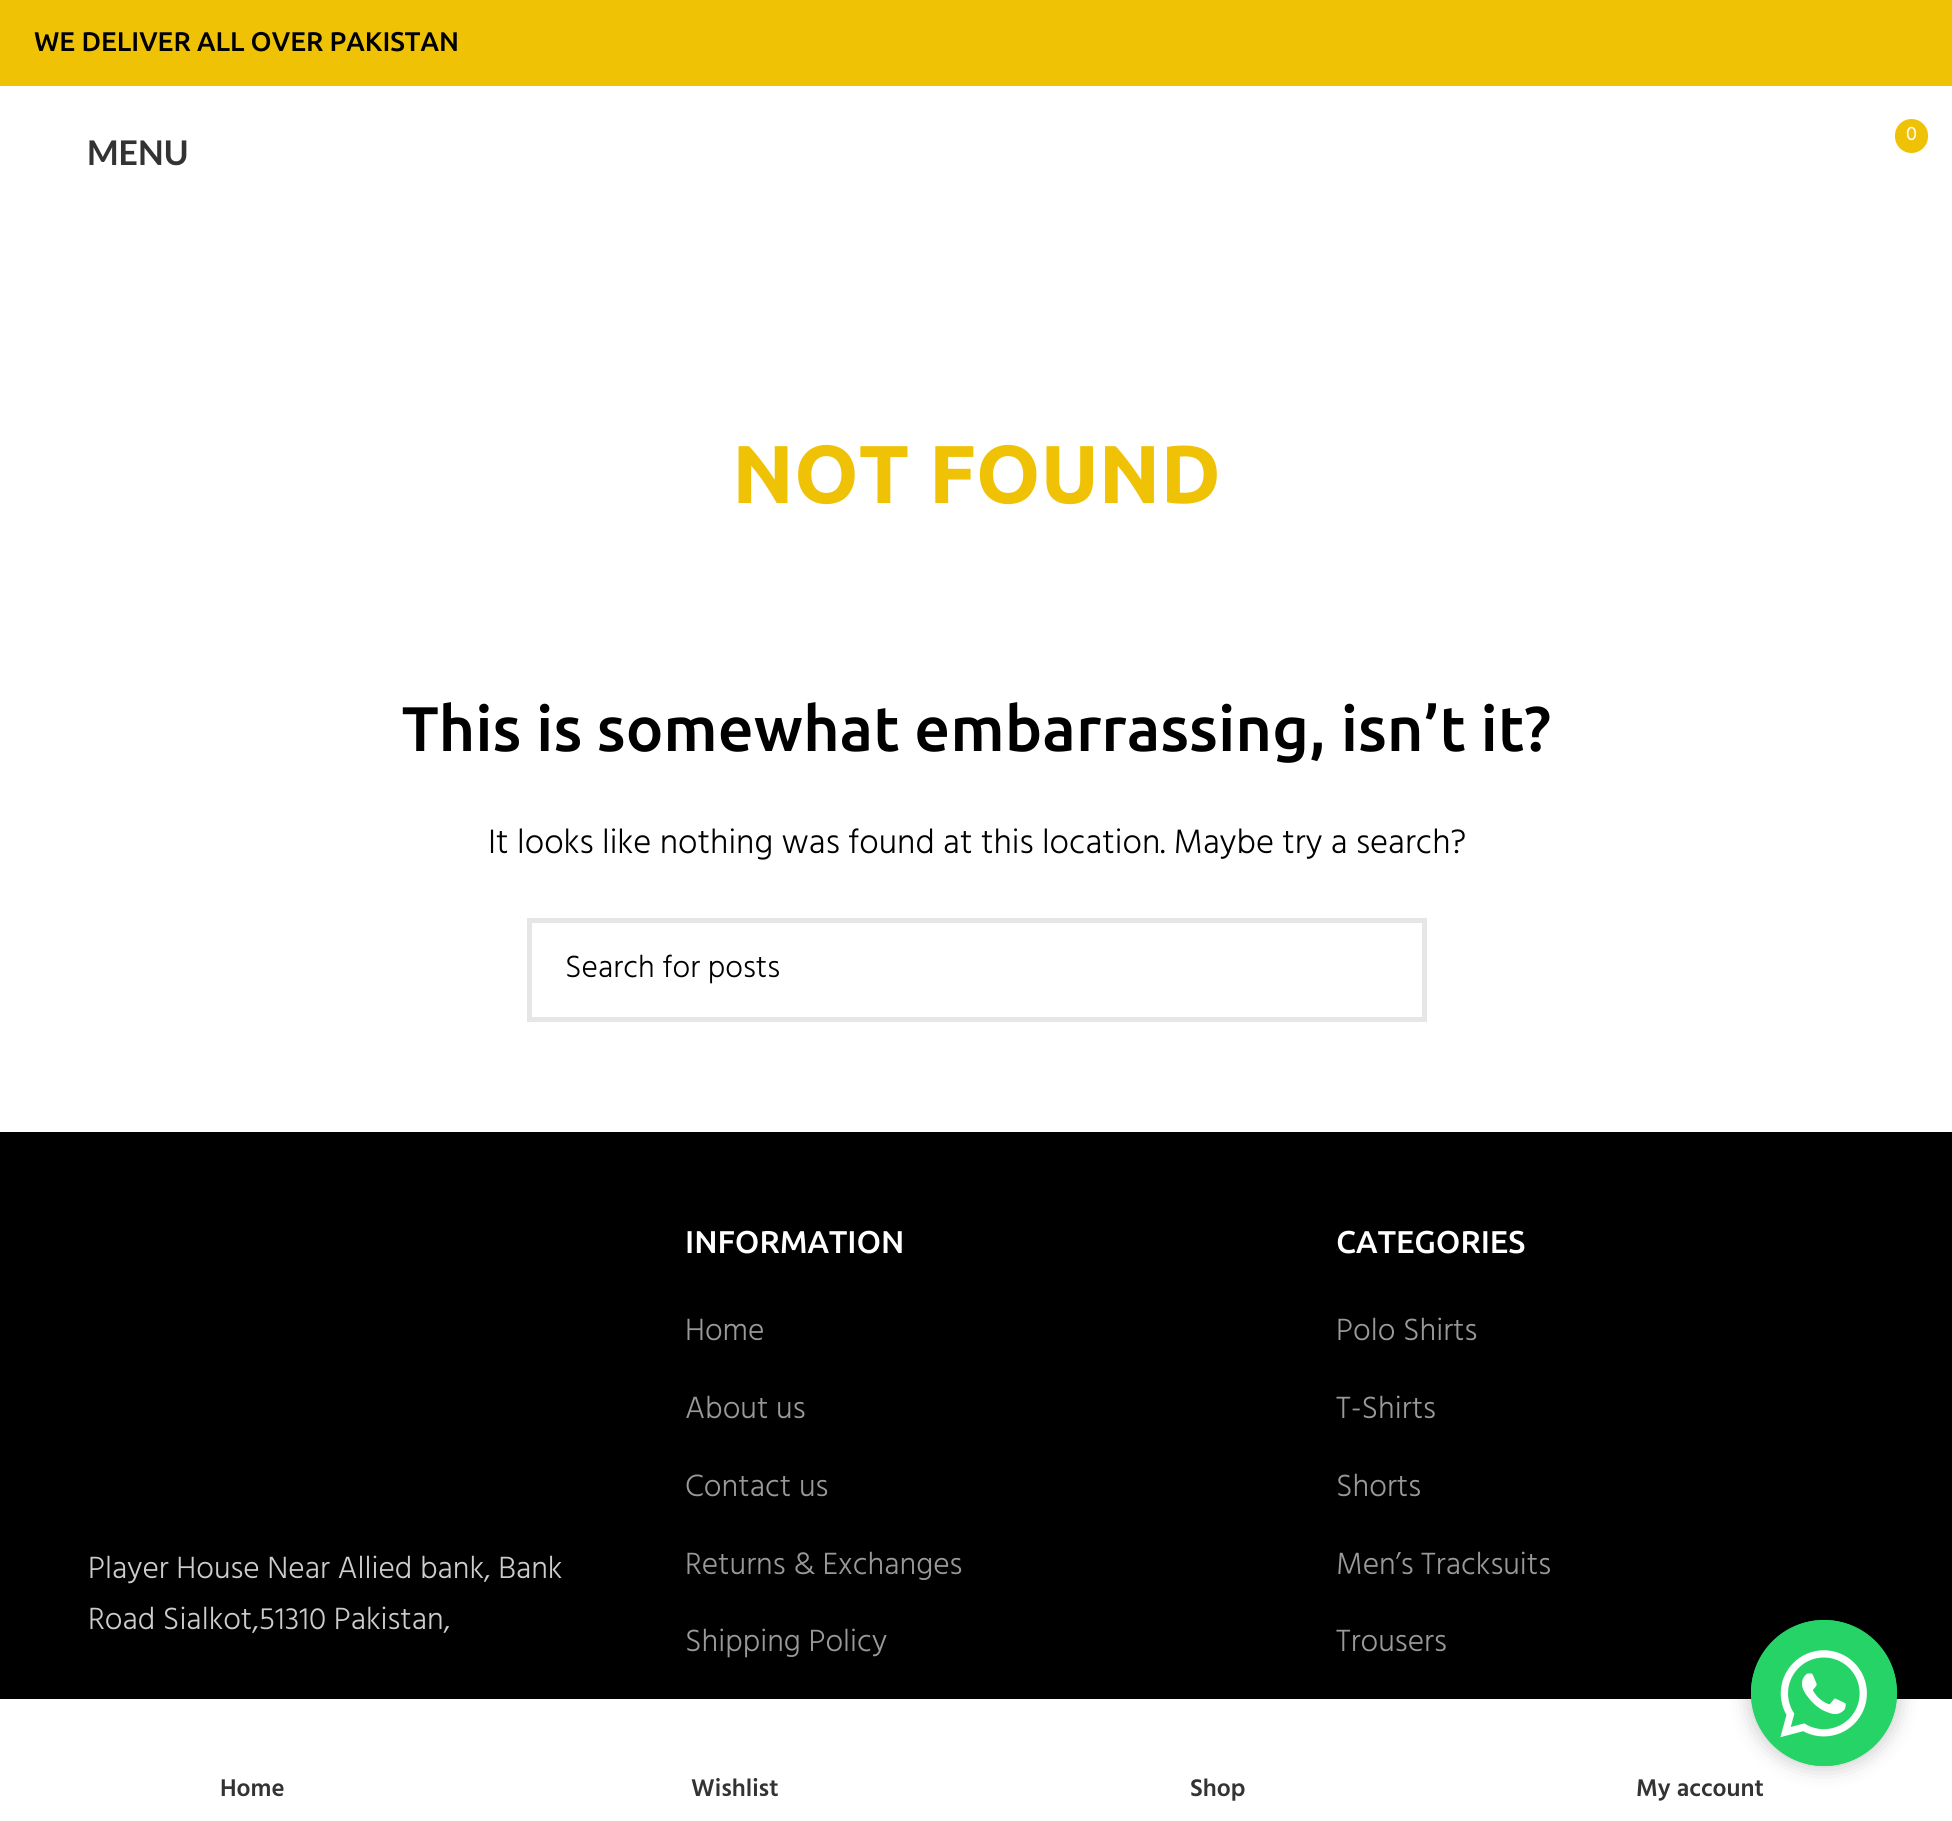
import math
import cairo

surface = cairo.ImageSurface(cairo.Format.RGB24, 1952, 1821)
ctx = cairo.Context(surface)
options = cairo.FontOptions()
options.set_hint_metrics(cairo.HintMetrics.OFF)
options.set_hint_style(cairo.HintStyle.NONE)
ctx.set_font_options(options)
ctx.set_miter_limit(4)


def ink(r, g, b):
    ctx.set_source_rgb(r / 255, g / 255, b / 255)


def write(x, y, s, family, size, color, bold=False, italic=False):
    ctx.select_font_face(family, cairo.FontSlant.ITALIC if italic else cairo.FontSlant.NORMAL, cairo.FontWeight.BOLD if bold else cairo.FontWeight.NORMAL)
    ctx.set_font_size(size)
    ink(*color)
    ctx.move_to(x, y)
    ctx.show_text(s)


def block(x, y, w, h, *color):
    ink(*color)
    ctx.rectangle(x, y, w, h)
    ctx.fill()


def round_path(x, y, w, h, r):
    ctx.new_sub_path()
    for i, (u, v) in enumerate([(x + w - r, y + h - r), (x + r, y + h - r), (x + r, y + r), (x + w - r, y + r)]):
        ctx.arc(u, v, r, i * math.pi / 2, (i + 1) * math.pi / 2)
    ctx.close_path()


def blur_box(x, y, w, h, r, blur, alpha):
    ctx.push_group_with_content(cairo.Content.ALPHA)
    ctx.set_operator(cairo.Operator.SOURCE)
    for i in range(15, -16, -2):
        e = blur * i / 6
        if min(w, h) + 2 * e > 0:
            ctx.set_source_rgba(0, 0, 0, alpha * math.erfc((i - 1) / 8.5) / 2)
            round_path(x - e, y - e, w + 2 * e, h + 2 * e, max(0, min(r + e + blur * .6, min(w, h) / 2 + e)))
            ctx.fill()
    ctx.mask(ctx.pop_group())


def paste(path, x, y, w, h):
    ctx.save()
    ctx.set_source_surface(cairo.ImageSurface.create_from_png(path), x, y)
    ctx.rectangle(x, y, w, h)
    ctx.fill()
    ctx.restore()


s1 = dict(family="Ubuntu Medium", size=27, color=(0, 0, 0))
s2 = dict(family="Hind", size=20, color=(255, 255, 255))
s3 = dict(family="Lato", size=34, color=(51, 51, 51), bold=True)
s4 = dict(family="Ubuntu", size=82, color=(239, 194, 5), bold=True)
s5 = dict(family="Ubuntu Medium", size=63, color=(0, 0, 0))
s6 = dict(family="Hind Light", size=34.65, color=(0, 0, 0))
s7 = dict(family="Hind Light", size=31.5, color=(0, 0, 0))
s8 = dict(family="Hind Light", size=31.5, color=(204, 204, 204))
s9 = dict(family="Ubuntu Medium", size=31.5, color=(255, 255, 255))
s10 = dict(family="Hind Light", size=31.5, color=(153, 153, 153))
s11 = dict(family="Hind SemiBold", size=24.75, color=(51, 51, 51))

ink(255, 255, 255)
ctx.paint()
block(0, 0, 1952, 86, 239, 194, 5)
write(34, 51, "WE DELIVER ALL OVER PAKISTAN", **s1)
ink(239, 194, 5)
round_path(1895, 119, 33, 34, 16.5)
ctx.fill()
write(1906, 140, "0", **s2)
write(87, 165, "MENU", **s3)
write(732, 503, "NOT FOUND", **s4)
write(402, 751, "This is somewhat embarrassing, isn’t it?", **s5)
write(488, 853, "It looks like nothing was found at this location. Maybe try a search?", **s6)
ctx.rectangle(529.5, 920.5, 895, 99)
ink(230, 230, 230)
ctx.set_line_width(5)
ctx.stroke()
write(565, 977, "Search for posts", **s7)
block(0, 1132, 1952, 567, 0, 0, 0)
write(88, 1578, "Player House Near Allied bank, Bank", **s8)
write(88, 1629, "Road Sialkot,51310 Pakistan,", **s8)
write(685, 1253, "INFORMATION", **s9)
write(685, 1340, "Home", **s10)
write(685, 1418, "About us", **s10)
write(685, 1496, "Contact us", **s10)
write(685, 1574, "Returns & Exchanges", **s10)
write(685, 1651, "Shipping Policy", **s10)
write(1336, 1253, "CATEGORIES", **s9)
write(1336, 1340, "Polo Shirts", **s10)
write(1336, 1418, "T-Shirts", **s10)
write(1336, 1496, "Shorts", **s10)
write(1336, 1574, "Men’s Tracksuits", **s10)
write(1336, 1651, "Trousers", **s10)
write(220, 1796, "Home", **s11)
write(691, 1796, "Wishlist", **s11)
write(1190, 1796, "Shop", **s11)
write(1636, 1796, "My account", **s11)
ink(0, 0, 0)
blur_box(1751, 1620, 146, 146, 73, 11, 0.25)
ink(37, 211, 102)
ctx.arc(1824, 1693, 73, 0, 2 * math.pi)
ctx.fill()
paste("pic1.png", 1751, 1620, 146, 146)
surface.write_to_png("screenshot.png")
